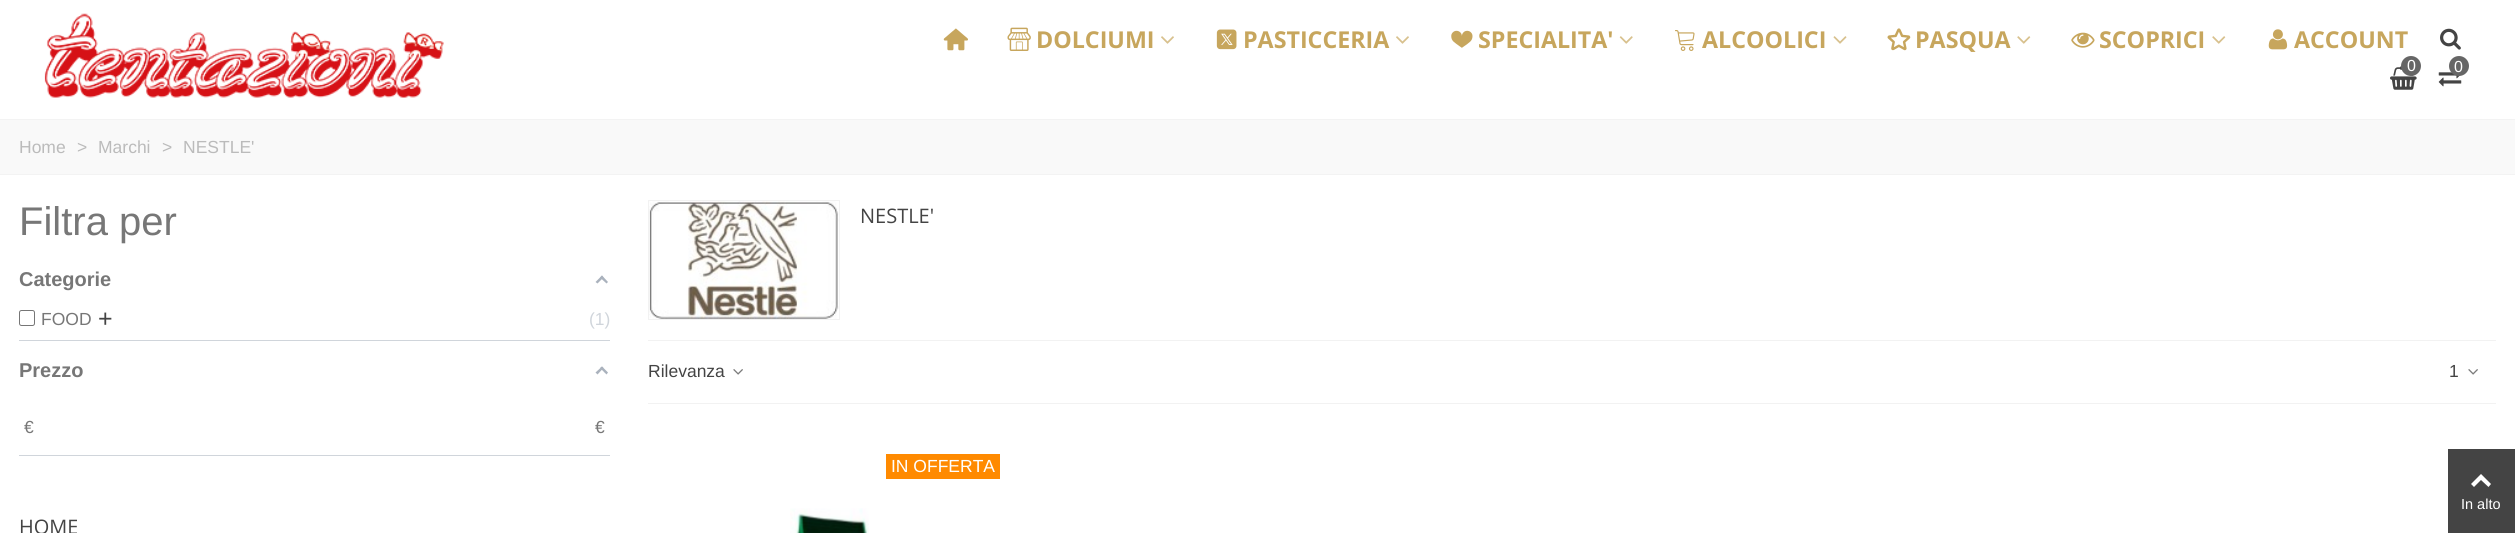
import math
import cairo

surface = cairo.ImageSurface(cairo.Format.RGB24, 2515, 533)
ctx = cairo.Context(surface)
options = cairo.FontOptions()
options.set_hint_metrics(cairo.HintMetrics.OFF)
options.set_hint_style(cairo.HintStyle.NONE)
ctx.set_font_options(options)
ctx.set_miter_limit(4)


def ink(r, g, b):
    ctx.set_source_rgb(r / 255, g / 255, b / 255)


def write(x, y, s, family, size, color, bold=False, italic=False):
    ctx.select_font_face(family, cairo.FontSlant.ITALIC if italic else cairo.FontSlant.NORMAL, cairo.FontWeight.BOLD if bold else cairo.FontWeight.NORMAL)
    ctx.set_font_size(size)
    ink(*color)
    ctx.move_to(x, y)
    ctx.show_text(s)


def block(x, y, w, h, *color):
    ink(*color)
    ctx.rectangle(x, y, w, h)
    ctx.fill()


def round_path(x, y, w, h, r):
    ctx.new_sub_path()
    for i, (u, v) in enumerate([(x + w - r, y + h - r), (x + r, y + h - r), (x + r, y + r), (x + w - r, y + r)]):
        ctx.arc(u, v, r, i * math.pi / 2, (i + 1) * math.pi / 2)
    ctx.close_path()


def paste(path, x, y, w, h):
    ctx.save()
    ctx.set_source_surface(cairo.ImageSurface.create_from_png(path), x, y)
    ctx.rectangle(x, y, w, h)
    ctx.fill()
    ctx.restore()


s1 = dict(family="Open Sans", size=23.25, color=(199, 166, 93), bold=True)
s2 = dict(family="Liberation Sans", size=16, color=(255, 255, 255))
s3 = dict(family="Liberation Sans", size=17.5, color=(187, 187, 187))
s4 = dict(family="Liberation Sans", size=40, color=(119, 119, 119))
s5 = dict(family="Liberation Sans", size=20, color=(119, 119, 119), bold=True)
s6 = dict(family="Liberation Sans", size=17.5, color=(119, 119, 119))
s7 = dict(family="Liberation Sans", size=25, color=(68, 68, 68))
s8 = dict(family="Liberation Sans", size=17.5, color=(208, 213, 219))
s9 = dict(family="Open Sans", size=20, color=(68, 68, 68))
s10 = dict(family="Liberation Sans", size=17.5, color=(68, 68, 68))
s11 = dict(family="Liberation Sans", size=17.5, color=(255, 255, 255))
s12 = dict(family="Liberation Sans", size=14.5, color=(255, 255, 255))

ink(255, 255, 255)
ctx.paint()
paste("pic1.png", 44, 13, 400, 85)
paste("pic2.png", 943, 28, 25, 23)
paste("pic3.png", 1007, 27, 24, 24)
write(1036, 48, "DOLCIUMI", **s1)
paste("pic4.png", 1161, 36, 13, 8)
paste("pic5.png", 1216, 29, 21, 21)
write(1243, 48, "PASTICCERIA", **s1)
paste("pic4.png", 1396, 36, 13, 8)
paste("pic6.png", 1451, 30, 22, 18)
write(1478, 48, "SPECIALITA'", **s1)
paste("pic7.png", 1619, 36, 14, 8)
paste("pic8.png", 1675, 30, 20, 21)
write(1702, 48, "ALCOOLICI", **s1)
paste("pic9.png", 1833, 36, 14, 8)
paste("pic10.png", 1887, 28, 24, 23)
write(1915, 48, "PASQUA", **s1)
paste("pic11.png", 2017, 36, 14, 8)
paste("pic12.png", 2071, 32, 24, 16)
write(2099, 48, "SCOPRICI", **s1)
paste("pic11.png", 2212, 36, 14, 8)
paste("pic13.png", 2268, 29, 20, 21)
write(2294, 48, "ACCOUNT", **s1)
paste("pic14.png", 2440, 28, 21, 22)
paste("pic15.png", 2390, 66, 27, 24)
ink(102, 102, 102)
ctx.arc(2411, 66, 10, 0, 2 * math.pi)
ctx.fill()
write(2407, 71, "0", **s2)
paste("pic16.png", 2438, 72, 24, 15)
ink(102, 102, 102)
ctx.arc(2459, 66, 10, 0, 2 * math.pi)
ctx.fill()
write(2454, 72, "0", **s2)
block(0, 120, 2515, 54, 249, 249, 249)
block(0, 119, 2515, 1, 243, 243, 243)
block(0, 174, 2515, 1, 243, 243, 243)
write(19, 153, "Home", **s3)
write(77, 153, ">", **s3)
write(98, 153, "Marchi", **s3)
write(162, 153, ">", **s3)
write(183, 153, "NESTLE'", **s3)
write(19, 235, "Filtra per", **s4)
block(19, 340, 591, 1, 208, 213, 219)
write(19, 286, "Categorie", **s5)
ink(170, 178, 189)
ctx.new_path()
ctx.move_to(602, 275.5)
ctx.line_to(608, 282)
ctx.line_to(606.5, 283.5)
ctx.line_to(600, 277.5)
ctx.close_path()
ctx.fill()
ctx.new_path()
ctx.move_to(602, 275.5)
ctx.line_to(603.5, 277.5)
ctx.line_to(597.5, 283.5)
ctx.line_to(595.5, 282)
ctx.close_path()
ctx.fill()
round_path(19.5, 310.5, 15, 15, 2)
ink(118, 118, 118)
ctx.set_line_width(1)
ctx.stroke()
write(41, 325, "FOOD", **s6)
write(98, 327, "+", **s7)
write(589, 325, "(1)", **s8)
block(19, 455, 591, 1, 208, 213, 219)
write(19, 377, "Prezzo", **s5)
ink(170, 178, 189)
ctx.new_path()
ctx.move_to(602, 366.5)
ctx.line_to(608, 372.5)
ctx.line_to(606.5, 374.5)
ctx.line_to(600, 368)
ctx.close_path()
ctx.fill()
ctx.new_path()
ctx.move_to(602, 366.5)
ctx.line_to(603.5, 368)
ctx.line_to(597.5, 374.5)
ctx.line_to(595.5, 372.5)
ctx.close_path()
ctx.fill()
write(24, 433, "€", **s6)
write(595, 433, "€", **s6)
write(19, 534, "HOME", **s9)
ctx.rectangle(648.5, 200.5, 191, 119)
ink(242, 242, 242)
ctx.stroke()
paste("pic17.png", 649, 201, 190, 118)
write(860, 223, "NESTLE'", **s9)
block(648, 340, 1848, 1, 242, 242, 242)
block(648, 403, 1848, 1, 242, 242, 242)
write(648, 377, "Rilevanza", **s10)
paste("pic18.png", 733, 369, 10, 6)
write(2449, 377, "1", **s10)
paste("pic18.png", 2468, 369, 10, 6)
block(886, 454, 114, 25, 255, 138, 0)
write(891, 472, "IN OFFERTA", **s11)
paste("pic19.png", 790, 508, 79, 25)
block(2448, 449, 67, 84, 68, 68, 68)
ink(255, 255, 255)
ctx.new_path()
ctx.move_to(2471, 484)
ctx.line_to(2481, 474)
ctx.line_to(2491, 484)
ctx.line_to(2488.5, 487)
ctx.line_to(2481, 480)
ctx.line_to(2474, 487)
ctx.close_path()
ctx.fill()
write(2461, 509, "In alto", **s12)
surface.write_to_png("screenshot.png")
